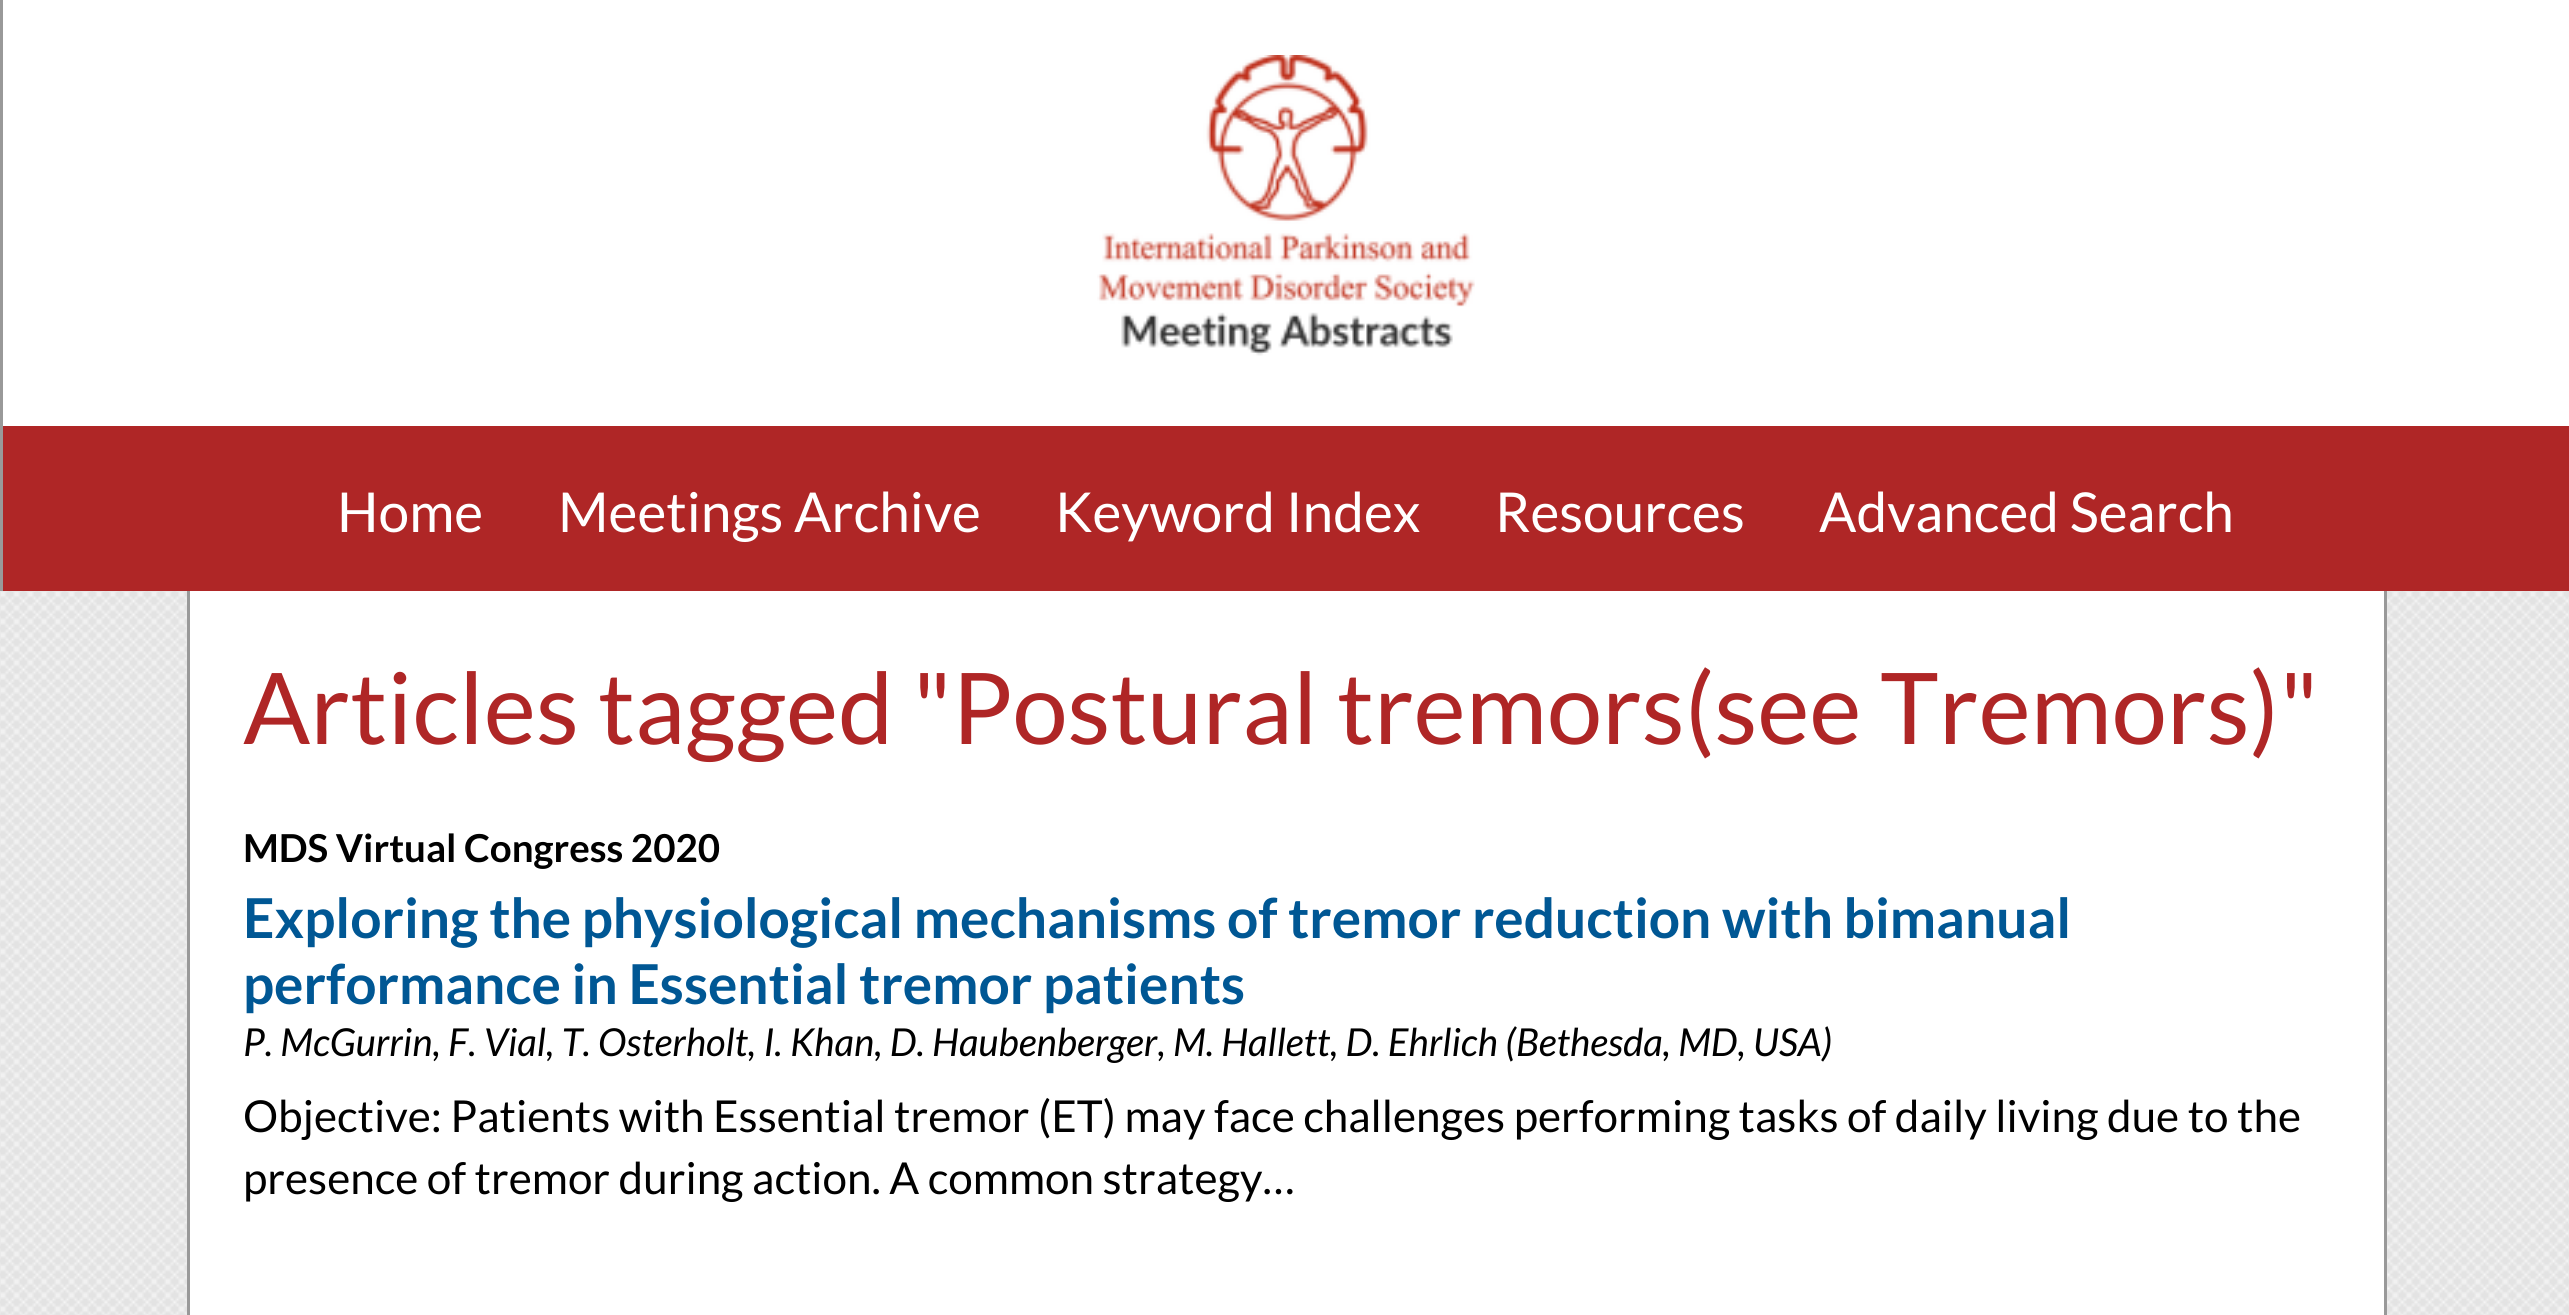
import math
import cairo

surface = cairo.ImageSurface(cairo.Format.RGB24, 2569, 1315)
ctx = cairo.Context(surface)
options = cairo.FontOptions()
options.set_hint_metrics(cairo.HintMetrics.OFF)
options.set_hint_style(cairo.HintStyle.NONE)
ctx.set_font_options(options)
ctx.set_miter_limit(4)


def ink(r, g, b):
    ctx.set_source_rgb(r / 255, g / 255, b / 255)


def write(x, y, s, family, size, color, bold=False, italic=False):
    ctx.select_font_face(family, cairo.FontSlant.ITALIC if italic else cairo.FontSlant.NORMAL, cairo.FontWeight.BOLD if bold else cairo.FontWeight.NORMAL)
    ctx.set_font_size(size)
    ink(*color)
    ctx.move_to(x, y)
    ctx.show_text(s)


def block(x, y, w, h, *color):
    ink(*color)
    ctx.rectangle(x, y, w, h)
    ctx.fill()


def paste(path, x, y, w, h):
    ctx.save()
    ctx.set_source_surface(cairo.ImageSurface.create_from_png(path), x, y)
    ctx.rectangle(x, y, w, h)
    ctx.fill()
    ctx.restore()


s1 = dict(family="Lato", size=55, color=(255, 255, 255))
s2 = dict(family="Lato", size=99, color=(175, 38, 38))
s3 = dict(family="Lato", size=38.5, color=(0, 0, 0), bold=True)
s4 = dict(family="Lato", size=55, color=(0, 87, 148), bold=True)
s5 = dict(family="Lato", size=38.5, color=(0, 0, 0), italic=True)
s6 = dict(family="Lato", size=44, color=(0, 0, 0))

ink(255, 255, 255)
ctx.paint()
paste("pic1.png", 0, 591, 2569, 724)
block(0, 0, 3, 591, 153, 153, 153)
paste("pic2.png", 1097, 55, 378, 301)
block(3, 426, 2566, 165, 175, 38, 38)
write(337, 532, "Home", **s1)
write(558, 532, "Meetings Archive", **s1)
write(1055, 532, "Keyword Index", **s1)
write(1495, 532, "Resources", **s1)
write(1819, 532, "Advanced Search", **s1)
block(190, 591, 2194, 724, 255, 255, 255)
block(2384, 591, 3, 724, 153, 153, 153)
block(187, 591, 3, 724, 153, 153, 153)
write(243, 744, "Articles tagged \"Postural tremors(see Tremors)\"", **s2)
write(243, 862, "MDS Virtual Congress 2020", **s3)
write(243, 938, "Exploring the physiological mechanisms of tremor reduction with bimanual", **s4)
write(243, 1004, "performance in Essential tremor patients", **s4)
write(243, 1056, "P. McGurrin, F. Vial, T. Osterholt, I. Khan, D. Haubenberger, M. Hallett, D. Ehrlich (Bethesda, MD, USA)", **s5)
write(243, 1132, "Objective: Patients with Essential tremor (ET) may face challenges performing tasks of daily living due to the", **s6)
write(243, 1194, "presence of tremor during action. A common strategy…", **s6)
surface.write_to_png("screenshot.png")
